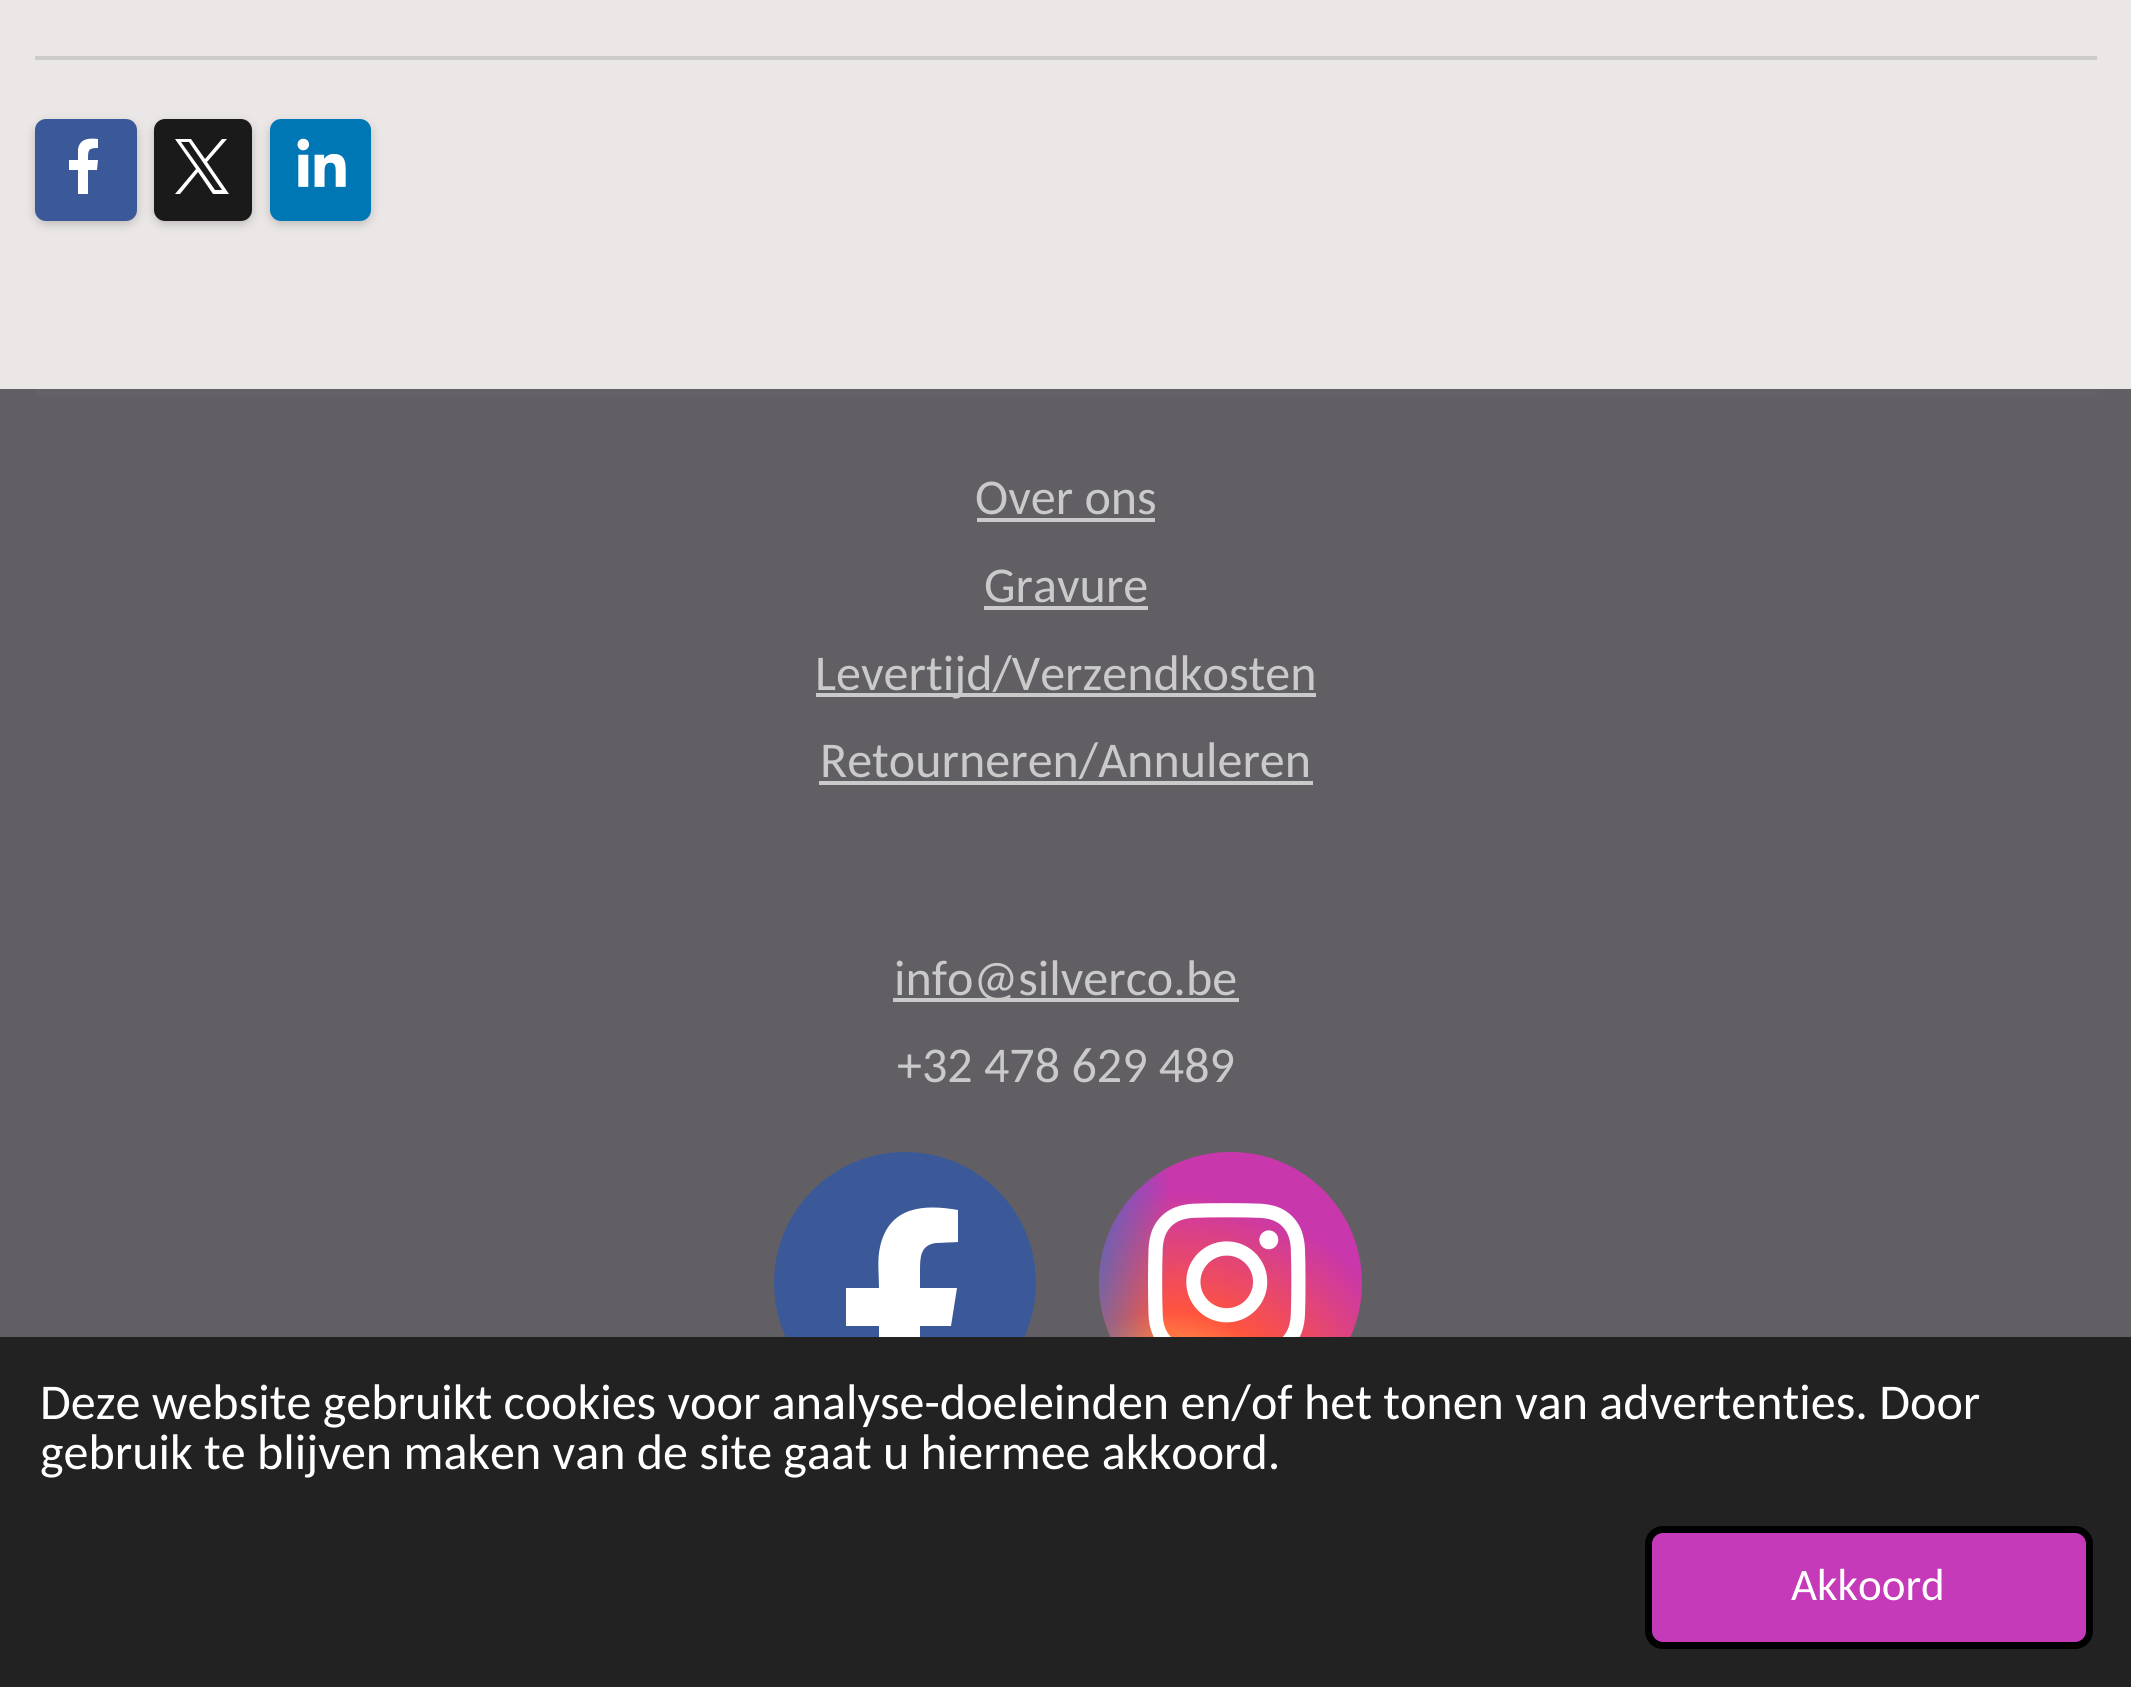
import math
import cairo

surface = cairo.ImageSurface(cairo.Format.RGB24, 2131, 1687)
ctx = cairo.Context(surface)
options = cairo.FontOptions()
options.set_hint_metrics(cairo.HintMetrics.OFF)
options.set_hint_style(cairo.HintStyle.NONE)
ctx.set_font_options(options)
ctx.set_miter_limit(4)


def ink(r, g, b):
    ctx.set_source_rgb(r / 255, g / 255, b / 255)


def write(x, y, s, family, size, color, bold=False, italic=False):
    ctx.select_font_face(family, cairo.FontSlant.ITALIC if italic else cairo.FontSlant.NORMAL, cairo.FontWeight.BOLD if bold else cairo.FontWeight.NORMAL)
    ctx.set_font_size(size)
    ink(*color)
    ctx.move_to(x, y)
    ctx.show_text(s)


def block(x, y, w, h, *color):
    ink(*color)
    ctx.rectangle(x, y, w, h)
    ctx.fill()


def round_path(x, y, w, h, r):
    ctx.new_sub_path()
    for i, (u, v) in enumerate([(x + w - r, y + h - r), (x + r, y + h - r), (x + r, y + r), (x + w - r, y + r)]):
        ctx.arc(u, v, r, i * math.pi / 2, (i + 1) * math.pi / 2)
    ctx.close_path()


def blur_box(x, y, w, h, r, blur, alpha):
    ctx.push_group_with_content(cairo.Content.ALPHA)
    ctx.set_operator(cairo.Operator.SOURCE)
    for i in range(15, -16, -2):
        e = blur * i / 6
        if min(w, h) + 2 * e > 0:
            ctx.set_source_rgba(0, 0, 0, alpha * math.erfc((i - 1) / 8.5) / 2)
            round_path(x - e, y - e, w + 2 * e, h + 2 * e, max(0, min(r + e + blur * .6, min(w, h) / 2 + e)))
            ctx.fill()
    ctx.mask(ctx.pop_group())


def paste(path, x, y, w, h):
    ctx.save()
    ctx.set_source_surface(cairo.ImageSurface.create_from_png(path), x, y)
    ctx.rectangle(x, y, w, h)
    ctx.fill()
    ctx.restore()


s1 = dict(family="Carlito", size=50.05, color=(202, 202, 202))
s2 = dict(family="Carlito", size=50.05, color=(255, 255, 255))
s3 = dict(family="Carlito", size=45, color=(255, 255, 255))

ink(235, 231, 231)
ctx.paint()
block(35, 56, 2062, 4, 206, 203, 203)
ink(0, 0, 0)
blur_box(35, 123, 102, 101, 11, 5, 0.2)
ink(59, 89, 152)
round_path(35, 119, 102, 102, 11)
ctx.fill()
ink(255, 255, 255)
ctx.new_path()
ctx.move_to(97, 170)
ctx.line_to(98, 160)
ctx.line_to(88, 160)
ctx.curve_to(88, 150, 88, 148, 98, 148)
ctx.line_to(98, 139)
ctx.curve_to(90, 138, 80, 138, 78, 149)
ctx.line_to(78, 160)
ctx.line_to(69, 160)
ctx.line_to(69, 170)
ctx.line_to(78, 170)
ctx.line_to(78, 194)
ctx.line_to(88, 194)
ctx.line_to(88, 170)
ctx.close_path()
ctx.fill()
ink(0, 0, 0)
blur_box(154, 123, 98, 101, 11, 5, 0.2)
ink(26, 26, 26)
round_path(154, 119, 98, 102, 11)
ctx.fill()
ink(255, 255, 255)
ctx.new_path()
ctx.move_to(207, 162)
ctx.line_to(227, 139)
ctx.line_to(222, 139)
ctx.line_to(205, 159)
ctx.line_to(191, 139)
ctx.line_to(175, 139)
ctx.line_to(196, 169)
ctx.line_to(175, 194)
ctx.line_to(180, 194)
ctx.line_to(198, 172)
ctx.line_to(213, 194)
ctx.line_to(229, 194)
ctx.close_path()
ctx.move_to(201, 170)
ctx.line_to(181, 142)
ctx.line_to(189, 142)
ctx.line_to(222, 190)
ctx.line_to(215, 190)
ctx.close_path()
ctx.fill()
ink(0, 0, 0)
blur_box(270, 123, 101, 101, 11, 5, 0.2)
ink(0, 119, 181)
round_path(270, 119, 101, 102, 11)
ctx.fill()
paste("pic1.png", 297, 138, 49, 49)
block(0, 389, 2131, 948, 98, 95, 100)
block(35, 389, 2062, 7, 101, 98, 103)
write(975, 514, "Over ons", **s1)
block(977, 518, 178, 4, 202, 202, 202)
write(984, 602, "Gravure", **s1)
block(984, 606, 164, 4, 202, 202, 202)
block(816, 693, 500, 4, 202, 202, 202)
write(815, 690, "Levertijd/Verzendkosten", **s1)
write(820, 777, "Retourneren/Annuleren", **s1)
block(819, 781, 494, 4, 202, 202, 202)
block(893, 998, 346, 4, 202, 202, 202)
write(894, 995, "info@silverco.be", **s1)
write(897, 1082, "+32 478 629 489", **s1)
ink(59, 89, 152)
ctx.new_path()
ctx.arc(905, 1283, 131, 0, 2 * math.pi)
ctx.fill()
ink(255, 255, 255)
ctx.new_path()
ctx.move_to(951, 1326)
ctx.line_to(920, 1326)
ctx.line_to(920, 1413)
ctx.curve_to(906, 1415, 892, 1414, 879, 1411)
ctx.line_to(879, 1326)
ctx.line_to(846, 1326)
ctx.line_to(846, 1288)
ctx.line_to(879, 1288)
ctx.curve_to(879, 1275, 877, 1260, 880, 1247)
ctx.curve_to(889, 1206, 924, 1204, 958, 1210)
ctx.line_to(958, 1242)
ctx.line_to(936, 1243)
ctx.curve_to(920, 1245, 920, 1258, 920, 1271)
ctx.line_to(920, 1288)
ctx.line_to(957, 1288)
ctx.close_path()
ctx.fill()
gradient = cairo.RadialGradient(0, 0, 0, 0, 0, 1)
gradient.set_matrix(cairo.Matrix(1 / 256, 0, 0, 1 / 238, -1 * 1168 / 256, -1 * 1430 / 238))
gradient.add_color_stop_rgba(0, 1, 0.867, 0.333, 1)
gradient.add_color_stop_rgba(0.1, 1, 0.867, 0.333, 1)
gradient.add_color_stop_rgba(0.5, 1, 0.329, 0.243, 1)
gradient.add_color_stop_rgba(1, 0.784, 0.216, 0.671, 1)
ctx.set_source(gradient)
round_path(1099, 1152, 263, 262, 131)
ctx.fill()
gradient = cairo.RadialGradient(0, 0, 0, 0, 0, 1)
gradient.set_matrix(cairo.Matrix(1 / 115, 0, 0, 1 / 472, -1 * 1056 / 115, -1 * 1170 / 472))
gradient.add_color_stop_rgba(0, 0.216, 0.443, 0.784, 1)
gradient.add_color_stop_rgba(0.13, 0.216, 0.443, 0.784, 1)
gradient.add_color_stop_rgba(1, 0.216, 0.443, 0.784, 0)
ctx.set_source(gradient)
round_path(1099, 1152, 263, 262, 131)
ctx.fill()
paste("pic2.png", 1148, 1203, 158, 134)
block(0, 1337, 2131, 350, 34, 34, 34)
write(40, 1419, "Deze website gebruikt cookies voor analyse-doeleinden en/of het tonen van advertenties. Door", **s2)
write(40, 1469, "gebruik te blijven maken van de site gaat u hiermee akkoord.", **s2)
ink(196, 58, 185)
round_path(1648.5, 1529.5, 441, 116, 14.5)
ctx.fill_preserve()
ink(0, 0, 0)
ctx.set_line_width(7)
ctx.stroke()
write(1791, 1600, "Akkoord", **s3)
surface.write_to_png("screenshot.png")
